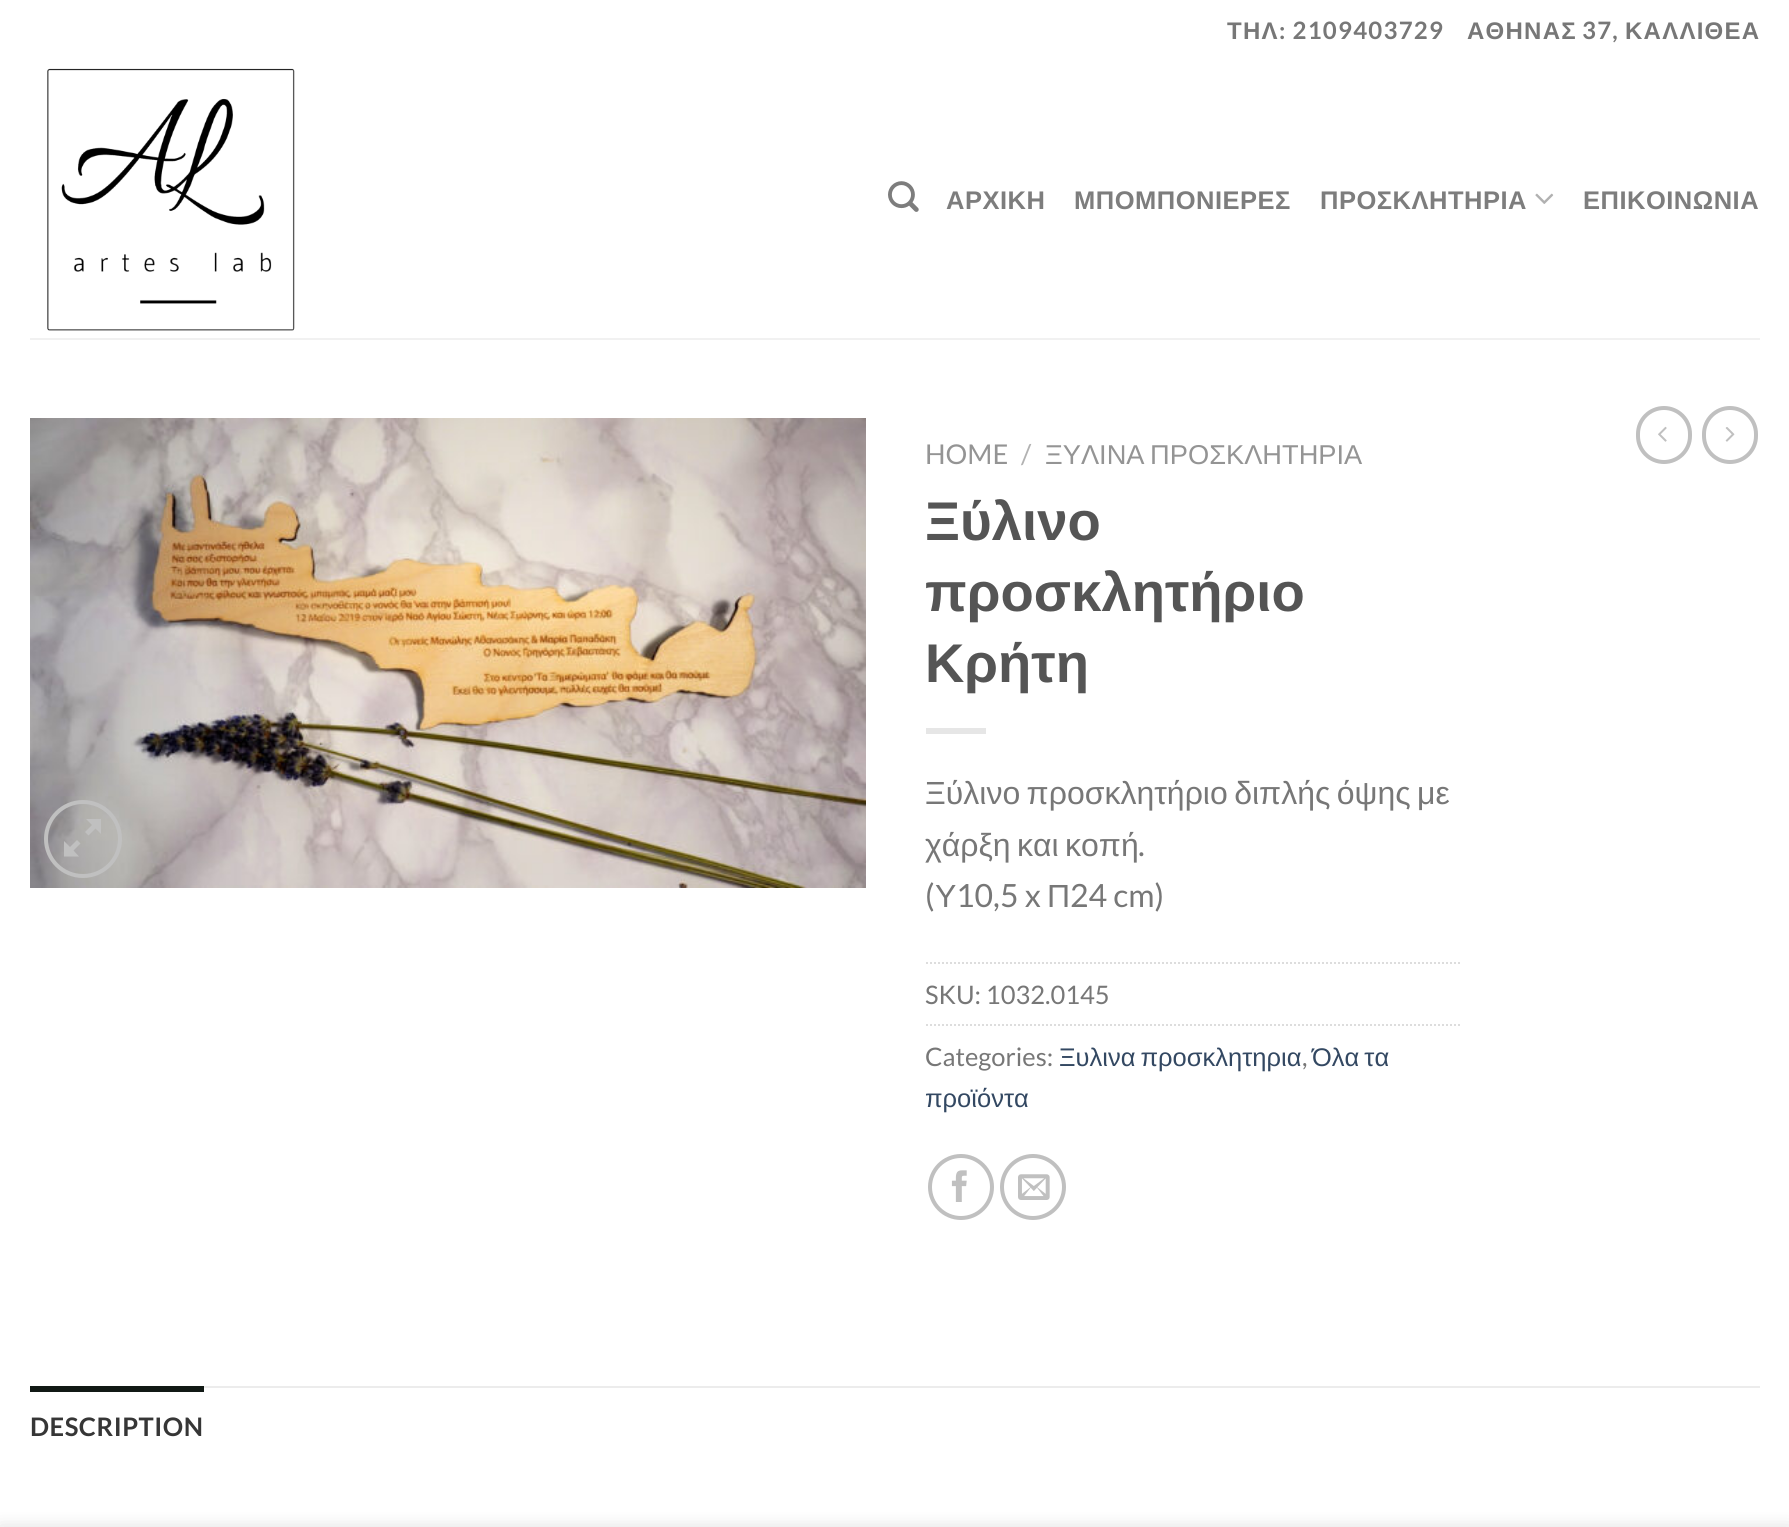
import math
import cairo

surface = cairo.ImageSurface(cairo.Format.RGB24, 1789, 1527)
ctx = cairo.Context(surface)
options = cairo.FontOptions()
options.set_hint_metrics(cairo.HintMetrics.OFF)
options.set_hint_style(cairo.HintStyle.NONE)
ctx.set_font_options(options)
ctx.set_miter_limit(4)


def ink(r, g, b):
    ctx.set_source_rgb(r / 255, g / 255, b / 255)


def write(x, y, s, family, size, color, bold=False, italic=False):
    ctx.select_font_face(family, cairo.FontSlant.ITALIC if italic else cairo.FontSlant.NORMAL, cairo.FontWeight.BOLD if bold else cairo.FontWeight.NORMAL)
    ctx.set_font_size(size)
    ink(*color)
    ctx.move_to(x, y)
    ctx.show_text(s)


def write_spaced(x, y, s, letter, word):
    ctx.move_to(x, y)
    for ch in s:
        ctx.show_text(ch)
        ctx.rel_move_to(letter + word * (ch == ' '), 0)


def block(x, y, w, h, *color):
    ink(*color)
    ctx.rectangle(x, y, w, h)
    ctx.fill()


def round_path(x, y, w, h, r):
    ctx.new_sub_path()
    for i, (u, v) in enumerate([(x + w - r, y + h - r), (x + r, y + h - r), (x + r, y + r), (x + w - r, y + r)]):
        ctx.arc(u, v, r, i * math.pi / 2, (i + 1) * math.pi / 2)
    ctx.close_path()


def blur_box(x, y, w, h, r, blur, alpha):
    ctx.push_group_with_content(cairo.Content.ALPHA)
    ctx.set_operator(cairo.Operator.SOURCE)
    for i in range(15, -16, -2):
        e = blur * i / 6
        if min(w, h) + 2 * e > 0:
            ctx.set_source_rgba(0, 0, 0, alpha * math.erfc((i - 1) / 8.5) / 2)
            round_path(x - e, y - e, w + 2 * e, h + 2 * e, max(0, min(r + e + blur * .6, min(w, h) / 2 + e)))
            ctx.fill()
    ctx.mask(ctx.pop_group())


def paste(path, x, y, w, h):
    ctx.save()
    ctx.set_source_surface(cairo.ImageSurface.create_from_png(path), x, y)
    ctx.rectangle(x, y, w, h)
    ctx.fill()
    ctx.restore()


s1 = dict(family="Lato", size=27.25, color=(148, 148, 148))
s2 = dict(family="Lato", size=27.25, color=(178, 178, 178))
s3 = dict(family="Liberation Sans", size=54.5, color=(85, 85, 85), bold=True)
s4 = dict(family="Lato", size=32, color=(119, 119, 119))
s5 = dict(family="Liberation Sans", size=32, color=(119, 119, 119))
s6 = dict(family="Lato", size=25.5, color=(119, 119, 119))
s7 = dict(family="Liberation Sans", size=25.5, color=(51, 72, 98))

ink(255, 255, 255)
ctx.paint()
ctx.select_font_face("Liberation Sans", cairo.FontSlant.NORMAL, cairo.FontWeight.BOLD)
ctx.set_font_size(24)
ink(119, 119, 119)
write_spaced(1227, 39, "ΤΗΛ", 1.25, 0)
ctx.select_font_face("Lato", cairo.FontSlant.NORMAL, cairo.FontWeight.BOLD)
write_spaced(1279, 39, ": 2109403729", 1.25, 0)
ctx.select_font_face("Liberation Sans", cairo.FontSlant.NORMAL, cairo.FontWeight.BOLD)
write_spaced(1467, 39, "ΑΘΗΝΑΣ", 1.25, 0)
ctx.select_font_face("Lato", cairo.FontSlant.NORMAL, cairo.FontWeight.BOLD)
write_spaced(1582, 39, "37,", 1.25, 0)
ctx.select_font_face("Liberation Sans", cairo.FontSlant.NORMAL, cairo.FontWeight.BOLD)
write_spaced(1625, 39, "ΚΑΛΛΙΘΕΑ", 1.25, 0)
paste("pic1.png", 47, 68, 248, 263)
paste("pic2.png", 888, 181, 31, 31)
ctx.set_font_size(25.5)
ink(125, 125, 125)
write_spaced(946, 209, "ΑΡΧΙΚΗ", 0.5, 0)
write_spaced(1074, 209, "ΜΠΟΜΠΟΝΙΕΡΕΣ", 0.5, 0)
write_spaced(1320, 209, "ΠΡΟΣΚΛΗΤΗΡΙΑ", 0.5, 0)
paste("pic3.png", 1535, 193, 19, 11)
write_spaced(1583, 209, "ΕΠΙΚΟΙΝΩΝΙΑ", 0.5, 0)
block(30, 338, 1730, 2, 241, 241, 241)
paste("pic4.png", 30, 418, 836, 470)
ctx.arc(83, 839, 37, 0, 2 * math.pi)
ink(192, 192, 192)
ctx.set_line_width(4)
ctx.stroke()
ctx.new_path()
ctx.move_to(101, 819)
ctx.line_to(101, 834)
ctx.line_to(95.5, 828.5)
ctx.line_to(88.5, 835.5)
ctx.line_to(85, 832)
ctx.line_to(92, 825)
ctx.line_to(86, 819)
ctx.close_path()
ctx.move_to(80.5, 843.5)
ctx.line_to(73.5, 850.5)
ctx.line_to(79, 856.5)
ctx.line_to(64, 856.5)
ctx.line_to(64, 841)
ctx.line_to(70, 847)
ctx.line_to(77, 840)
ctx.close_path()
ctx.fill()
write(925, 464, "HOME", **s1)
write(1021, 464, "/", **s2)
ctx.select_font_face("Liberation Sans")
ink(148, 148, 148)
write_spaced(1045, 464, "ΞΥΛΙΝΑ ΠΡΟΣΚΛΗΤΗΡΙΑ", 0, -2)
write(925, 540, "Ξύλινο", **s3)
write(925, 611, "προσκλητήριο", **s3)
write(925, 682, "Κρήτη", **s3)
block(926, 728, 60, 6, 230, 230, 230)
ctx.select_font_face("Liberation Sans")
ctx.set_font_size(32)
ink(119, 119, 119)
write_spaced(925, 804, "Ξύλινο προσκλητήριο διπλής όψης με", 0, -2.5)
write_spaced(925, 856, "χάρξη και κοπή", 0, -2.5)
write(1138, 856, ".", **s4)
write(925, 907, "(", **s4)
write(935, 907, "Υ", **s5)
write(956, 907, "10,5 x", **s4)
write(1047, 907, "Π", **s5)
write(1070, 907, "24 cm)", **s4)
ctx.new_path()
ctx.move_to(926, 963)
ctx.line_to(1462, 963)
ink(221, 221, 221)
ctx.set_line_width(2)
ctx.set_dash([2, 2])
ctx.stroke()
write(925, 1004, "SKU: 1032.0145", **s6)
ctx.new_path()
ctx.move_to(926, 1025)
ctx.line_to(1462, 1025)
ink(221, 221, 221)
ctx.stroke()
write(925, 1066, "Categories:", **s6)
ctx.select_font_face("Liberation Sans")
ink(51, 72, 98)
write_spaced(1059, 1066, "Ξυλινα προσκλητηρια", 0, -2)
write(1302, 1066, ",", **s6)
ctx.select_font_face("Liberation Sans")
ink(51, 72, 98)
write_spaced(1312, 1066, "Όλα τα", 0, -2)
write(925, 1107, "προϊόντα", **s7)
ctx.new_path()
ctx.arc(961, 1187, 31, 0, 2 * math.pi)
ink(192, 192, 192)
ctx.set_line_width(4)
ctx.set_dash([])
ctx.stroke()
paste("pic5.png", 951, 1170, 16, 32)
ctx.arc(1033, 1187, 31, 0, 2 * math.pi)
ctx.stroke()
paste("pic6.png", 1018, 1174, 32, 26)
round_path(1638, 408, 52, 54, 26)
ctx.stroke()
paste("pic7.png", 1658, 426, 9, 16)
round_path(1704, 408, 52, 54, 26)
ctx.stroke()
paste("pic8.png", 1725, 427, 10, 15)
block(204, 1386, 1556, 2, 236, 236, 236)
block(30, 1386, 174, 6, 17, 25, 21)
ctx.select_font_face("Lato", cairo.FontSlant.NORMAL, cairo.FontWeight.BOLD)
ink(54, 54, 54)
write_spaced(30, 1436, "DESCRIPTION", 0.5, 0)
ink(0, 0, 0)
blur_box(0, 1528, 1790, 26, 0, 9, 0.14)
surface.write_to_png("screenshot.png")
